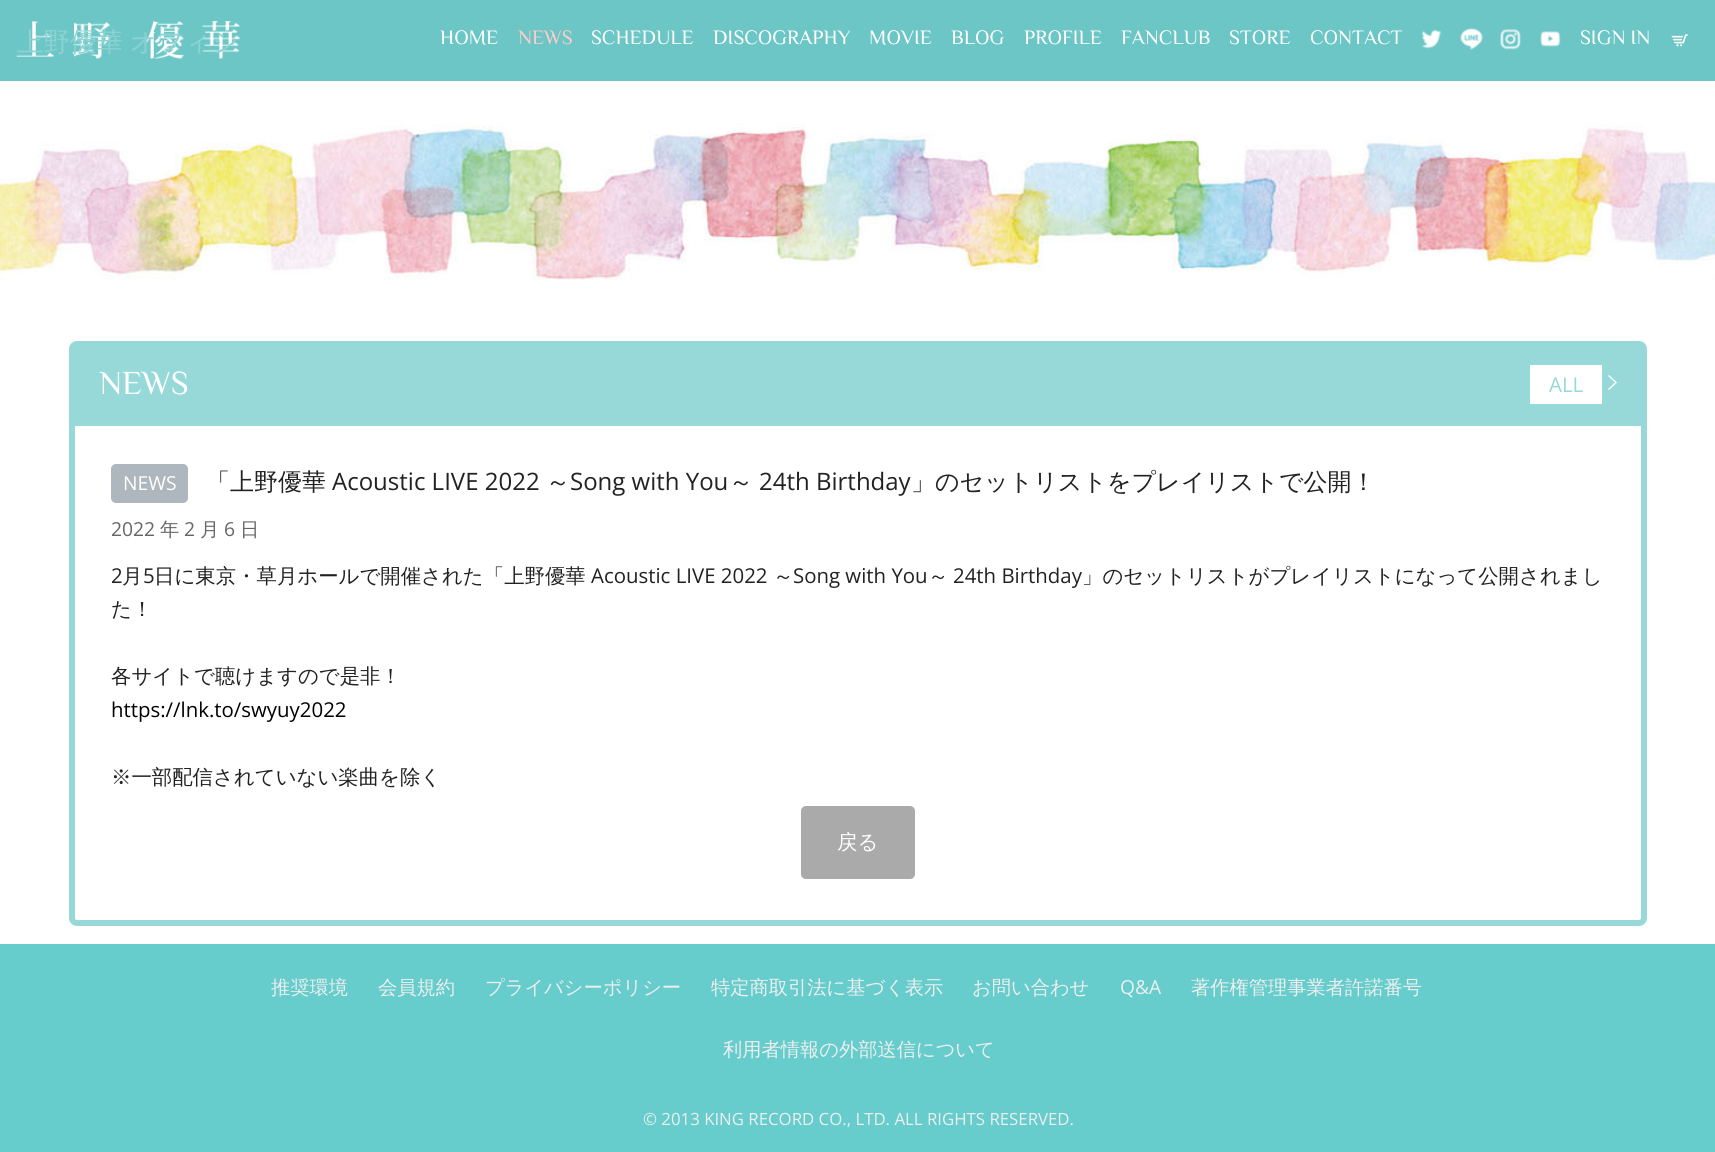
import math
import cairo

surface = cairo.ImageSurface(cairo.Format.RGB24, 1715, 1152)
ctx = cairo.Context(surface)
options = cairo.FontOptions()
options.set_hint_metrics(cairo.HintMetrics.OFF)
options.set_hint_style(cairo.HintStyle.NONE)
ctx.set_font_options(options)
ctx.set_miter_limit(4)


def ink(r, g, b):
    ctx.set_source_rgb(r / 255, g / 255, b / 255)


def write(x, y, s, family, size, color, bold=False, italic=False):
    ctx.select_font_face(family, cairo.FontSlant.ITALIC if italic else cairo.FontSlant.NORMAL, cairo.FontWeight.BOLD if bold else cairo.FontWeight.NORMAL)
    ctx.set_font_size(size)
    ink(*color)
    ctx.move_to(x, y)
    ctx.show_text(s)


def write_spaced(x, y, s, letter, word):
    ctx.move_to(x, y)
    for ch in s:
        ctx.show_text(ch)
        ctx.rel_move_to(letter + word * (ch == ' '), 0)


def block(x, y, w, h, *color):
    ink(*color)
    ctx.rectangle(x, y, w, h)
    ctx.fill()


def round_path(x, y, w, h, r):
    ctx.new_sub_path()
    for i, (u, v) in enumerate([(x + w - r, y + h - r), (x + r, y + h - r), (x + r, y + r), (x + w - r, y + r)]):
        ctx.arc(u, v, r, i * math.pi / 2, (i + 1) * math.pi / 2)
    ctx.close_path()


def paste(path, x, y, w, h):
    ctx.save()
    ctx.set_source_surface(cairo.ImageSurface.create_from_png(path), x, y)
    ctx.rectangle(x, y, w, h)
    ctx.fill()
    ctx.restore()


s1 = dict(family="Philosopher", size=20.4, color=(255, 255, 255))
s2 = dict(family="Philosopher", size=20.4, color=(255, 204, 204))
s3 = dict(family="Philosopher", size=33.5, color=(255, 255, 255))
s4 = dict(family="Open Sans", size=20.4, color=(151, 216, 216))
s5 = dict(family="Open Sans", size=19.25, color=(255, 255, 255))
s6 = dict(family="WenQuanYi Zen Hei Medium", size=24, color=(34, 34, 34))
s7 = dict(family="Open Sans", size=24, color=(34, 34, 34))
s8 = dict(family="Open Sans", size=19.25, color=(102, 102, 102))
s9 = dict(family="WenQuanYi Zen Hei Medium", size=19.25, color=(102, 102, 102))
s10 = dict(family="Open Sans", size=20.4, color=(34, 34, 34))
s11 = dict(family="WenQuanYi Zen Hei Medium", size=20.4, color=(34, 34, 34))
s12 = dict(family="Open Sans", size=20.4, color=(0, 0, 0))
s13 = dict(family="WenQuanYi Zen Hei Medium", size=20.4, color=(255, 255, 255))
s14 = dict(family="WenQuanYi Zen Hei Medium", size=19.25, color=(238, 238, 238))
s15 = dict(family="Open Sans", size=19.25, color=(238, 238, 238))
s16 = dict(family="Open Sans", size=16.8, color=(238, 238, 238))

ink(255, 255, 255)
ctx.paint()
block(0, 0, 1715, 81, 109, 198, 198)
paste("pic1.png", 16, 21, 224, 38)
ctx.select_font_face("WenQuanYi Zen Hei Medium")
ctx.set_font_size(26.5)
ink(141, 210, 210)
write_spaced(17, 51, "上野優華 オフィシ", 0, -1)
write(440, 44, "HOME", **s1)
write(518, 44, "NEWS", **s2)
write(591, 44, "SCHEDULE", **s1)
write(713, 44, "DISCOGRAPHY", **s1)
write(869, 44, "MOVIE", **s1)
write(951, 44, "BLOG", **s1)
write(1024, 44, "PROFILE", **s1)
write(1121, 44, "FANCLUB", **s1)
write(1229, 44, "STORE", **s1)
write(1310, 44, "CONTACT", **s1)
paste("pic2.png", 1422, 29, 20, 20)
paste("pic3.png", 1460, 28, 23, 22)
paste("pic4.png", 1500, 29, 21, 21)
paste("pic5.png", 1540, 31, 21, 16)
write(1580, 44, "SIGN IN", **s1)
paste("pic6.png", 1671, 34, 17, 13)
paste("pic7.png", 0, 124, 1715, 156)
round_path(72, 344, 1572, 579, 5)
ink(151, 216, 216)
ctx.set_line_width(6)
ctx.stroke()
block(75, 347, 1566, 79, 151, 216, 216)
write(99, 394, "NEWS", **s3)
block(1530, 365, 72, 39, 255, 255, 255)
write(1549, 392, "ALL", **s4)
paste("pic8.png", 1608, 375, 9, 15)
ink(174, 183, 189)
round_path(111, 464, 77, 39, 5)
ctx.fill()
write(123, 490, "NEWS", **s5)
write(206, 490, "「上野優華", **s6)
write(332, 490, "Acoustic LIVE 2022", **s7)
write(546, 490, "～", **s6)
write(570, 490, "Song with You", **s7)
write(729, 490, "～", **s6)
write(759, 490, "24th Birthday", **s7)
write(911, 490, "」のセットリストをプレイリストで公開！", **s6)
write(111, 536, "2022", **s8)
write(160, 536, "年", **s9)
write(184, 536, "2", **s8)
write(200, 536, "月", **s9)
write(224, 536, "6", **s8)
write(240, 536, "日", **s9)
write(111, 583, "2", **s10)
write(122, 583, "月", **s11)
write(143, 583, "5", **s10)
write(154, 583, "日に東京・草月ホールで開催された「上野優華", **s11)
write(591, 583, "Acoustic LIVE 2022", **s10)
write(773, 583, "～", **s11)
write(793, 583, "Song with You", **s10)
write(928, 583, "～", **s11)
write(953, 583, "24th Birthday", **s10)
write(1082, 583, "」のセットリストがプレイリストになって公開されまし", **s11)
write(111, 616, "た！", **s11)
write(111, 683, "各サイトで聴けますので是非！", **s11)
write(111, 717, "https://lnk.to/swyuy2022", **s12)
write(111, 784, "※一部配信されていない楽曲を除く", **s11)
ink(170, 170, 170)
round_path(801, 806, 114, 73, 5)
ctx.fill()
write(837, 849, "戻る", **s13)
block(0, 944, 1715, 208, 102, 204, 204)
write(271, 994, "推奨環境", **s14)
write(378, 994, "会員規約", **s14)
write(485, 994, "プライバシーポリシー", **s14)
write(711, 994, "特定商取引法に基づく表示", **s14)
write(972, 994, "お問い合わせ", **s14)
write(1120, 994, "Q&A", **s15)
write(1191, 994, "著作権管理事業者許諾番号", **s14)
write(723, 1056, "利用者情報の外部送信について", **s14)
write(643, 1125, "© 2013 KING RECORD CO., LTD. ALL RIGHTS RESERVED.", **s16)
surface.write_to_png("screenshot.png")
